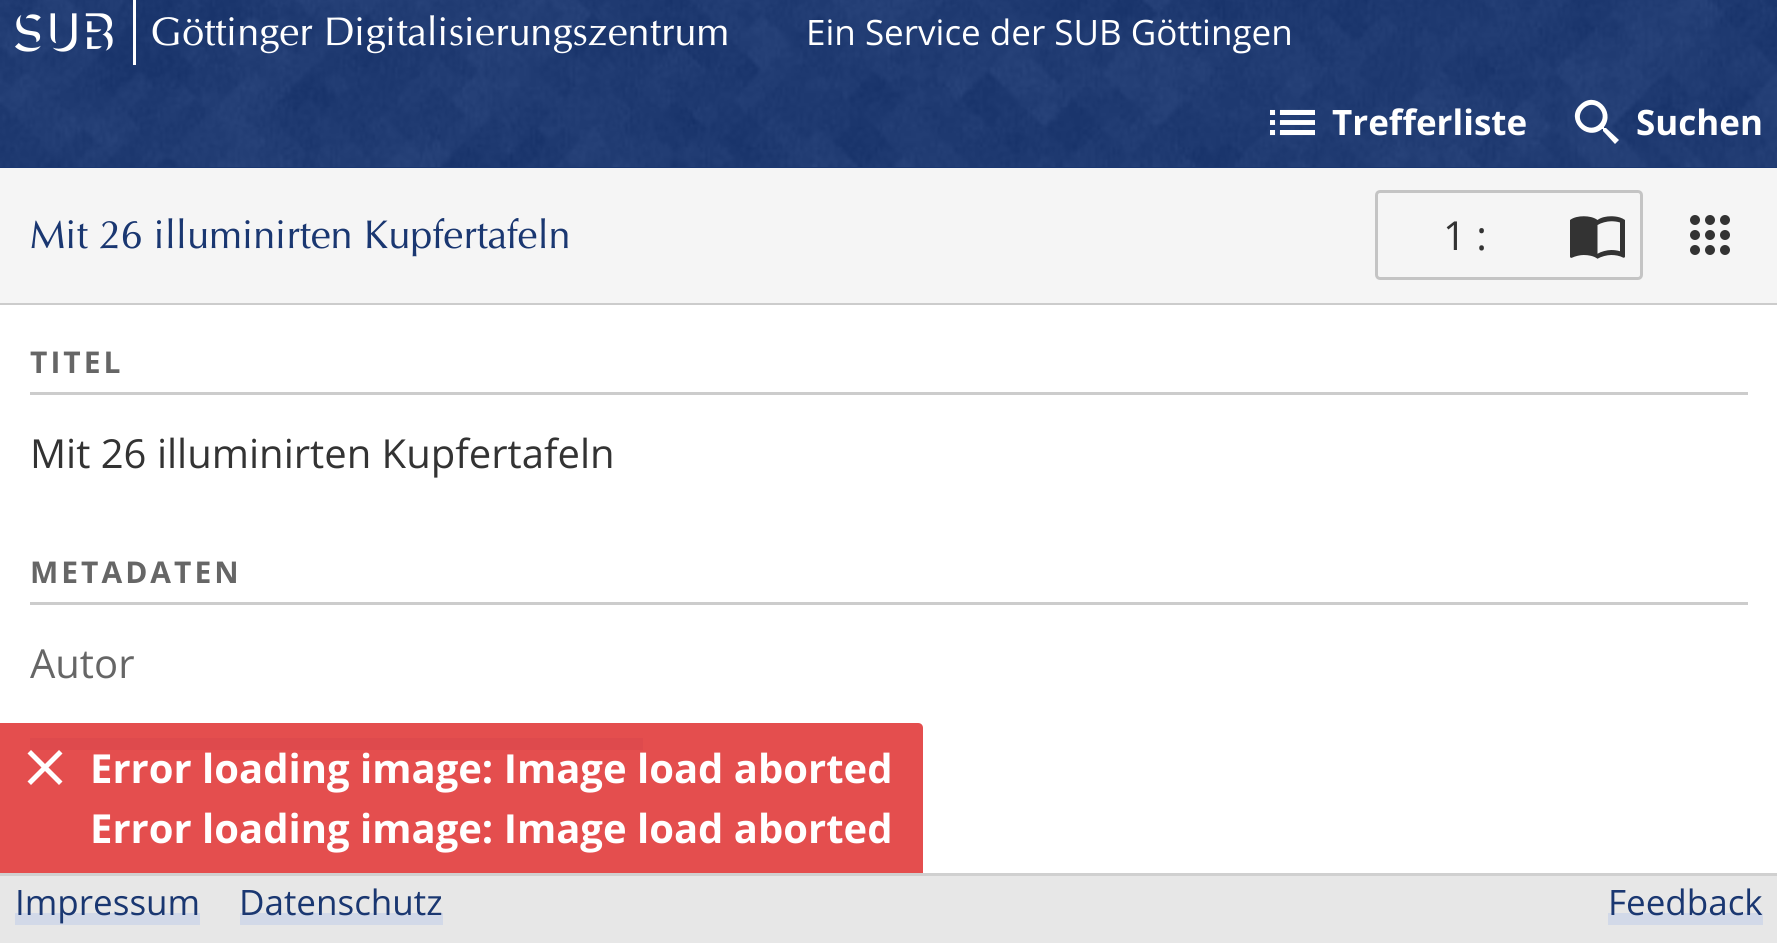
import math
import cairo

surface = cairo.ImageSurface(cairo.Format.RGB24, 1777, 943)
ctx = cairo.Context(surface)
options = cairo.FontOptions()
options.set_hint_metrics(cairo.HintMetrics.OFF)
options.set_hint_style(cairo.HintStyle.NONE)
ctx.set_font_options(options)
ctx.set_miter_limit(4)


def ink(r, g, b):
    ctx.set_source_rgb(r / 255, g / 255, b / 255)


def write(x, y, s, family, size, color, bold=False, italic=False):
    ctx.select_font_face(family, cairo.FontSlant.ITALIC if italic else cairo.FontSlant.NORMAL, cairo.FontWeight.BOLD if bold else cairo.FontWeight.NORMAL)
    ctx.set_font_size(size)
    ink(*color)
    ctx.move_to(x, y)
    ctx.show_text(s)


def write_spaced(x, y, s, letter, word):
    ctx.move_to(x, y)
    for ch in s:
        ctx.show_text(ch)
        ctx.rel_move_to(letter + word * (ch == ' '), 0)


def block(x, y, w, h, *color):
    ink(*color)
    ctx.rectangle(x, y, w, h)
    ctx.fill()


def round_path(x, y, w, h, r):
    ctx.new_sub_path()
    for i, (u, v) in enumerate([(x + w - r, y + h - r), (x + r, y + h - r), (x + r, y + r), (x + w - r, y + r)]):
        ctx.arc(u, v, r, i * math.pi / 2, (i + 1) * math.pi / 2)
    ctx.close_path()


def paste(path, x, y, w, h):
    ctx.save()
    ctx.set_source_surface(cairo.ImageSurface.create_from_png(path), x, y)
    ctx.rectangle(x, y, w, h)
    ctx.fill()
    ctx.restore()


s1 = dict(family="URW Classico", size=40, color=(255, 255, 255))
s2 = dict(family="Open Sans", size=35, color=(255, 255, 255))
s3 = dict(family="Open Sans", size=35, color=(255, 255, 255), bold=True)
s4 = dict(family="URW Classico", size=40, color=(26, 55, 113))
s5 = dict(family="Open Sans", size=40, color=(51, 51, 51))
s6 = dict(family="Open Sans", size=40, color=(102, 102, 102))
s7 = dict(family="Open Sans", size=40, color=(255, 255, 255), bold=True)
s8 = dict(family="Open Sans", size=35, color=(26, 55, 113))

ink(231, 231, 231)
ctx.paint()
block(0, 167, 1777, 1, 26, 55, 113)
paste("pic1.png", 0, 0, 1777, 167)
paste("pic2.png", 15, 13, 98, 39)
write(151, 45, "Göttinger Digitalisierungszentrum", **s1)
block(133, 0, 3, 65, 255, 255, 255)
write(806, 45, "Ein Service der SUB Göttingen", **s2)
paste("pic3.png", 1270, 109, 45, 27)
write(1332, 135, "Trefferliste", **s3)
ctx.new_path()
ctx.move_to(1583, 124)
ctx.curve_to(1594, 135, 1610, 119, 1599, 108)
ctx.curve_to(1589, 98, 1573, 114, 1583, 124)
ctx.close_path()
ctx.move_to(1606, 128)
ctx.line_to(1619, 140)
ctx.line_to(1615, 144)
ctx.line_to(1603, 131)
ctx.line_to(1603, 129)
ctx.line_to(1602, 129)
ctx.curve_to(1586, 142, 1565, 119, 1580, 105)
ctx.curve_to(1595, 90, 1616, 111, 1604, 127)
ctx.line_to(1604, 128)
ctx.close_path()
ctx.fill()
write(1636, 135, "Suchen", **s3)
block(0, 303, 1777, 570, 255, 255, 255)
ctx.set_source_rgba(0, 0, 0, 0.2)
ctx.new_path()
ctx.move_to(0, 302)
ctx.line_to(0, 305)
ctx.line_to(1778, 305)
ctx.line_to(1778, 170)
ctx.line_to(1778, 302)
ctx.close_path()
ctx.fill()
block(0, 168, 1777, 135, 245, 245, 245)
write(30, 248, "Mit 26 illuminirten Kupfertafeln", **s4)
round_path(1376.5, 191.5, 265, 87, 3.5)
ink(196, 196, 196)
ctx.set_line_width(3)
ctx.stroke()
write(1443, 250, "1 :", **s5)
paste("pic4.png", 1570, 216, 55, 43)
paste("pic5.png", 1690, 215, 40, 40)
ink(204, 204, 204)
ctx.new_path()
ctx.move_to(30, 392)
ctx.line_to(30, 395)
ctx.line_to(1748, 395)
ctx.line_to(1748, 335)
ctx.line_to(1748, 392)
ctx.close_path()
ctx.fill()
ctx.select_font_face("Open Sans", cairo.FontSlant.NORMAL, cairo.FontWeight.BOLD)
ctx.set_font_size(30)
ink(102, 102, 102)
write_spaced(30, 373, "TITEL", 3, 0)
write(30, 468, "Mit 26 illuminirten Kupfertafeln", **s5)
ink(204, 204, 204)
ctx.new_path()
ctx.move_to(30, 602)
ctx.line_to(30, 605)
ctx.line_to(1748, 605)
ctx.line_to(1748, 545)
ctx.line_to(1748, 602)
ctx.close_path()
ctx.fill()
ctx.select_font_face("Open Sans", cairo.FontSlant.NORMAL, cairo.FontWeight.BOLD)
ctx.set_font_size(30)
ink(102, 102, 102)
write_spaced(30, 583, "METADATEN", 3, 0)
write(30, 678, "Autor", **s6)
block(30, 738, 613, 12, 227, 234, 248)
ctx.set_source_rgba(0.867, 0.133, 0.133, 0.8)
ctx.new_path()
ctx.move_to(0, 723)
ctx.line_to(918, 723)
ctx.curve_to(921, 723, 923, 725, 923, 728)
ctx.line_to(923, 873)
ctx.line_to(0, 873)
ctx.close_path()
ctx.fill()
ink(255, 255, 255)
ctx.new_path()
ctx.move_to(62.5, 753.5)
ctx.line_to(59, 750)
ctx.line_to(45, 764)
ctx.line_to(31, 750)
ctx.line_to(27.5, 753.5)
ctx.line_to(41.5, 767.5)
ctx.line_to(27.5, 781.5)
ctx.line_to(31, 785)
ctx.line_to(45, 771)
ctx.line_to(59, 785)
ctx.line_to(62.5, 781.5)
ctx.line_to(48.5, 767.5)
ctx.close_path()
ctx.fill()
write(90, 783, "Error loading image: Image load aborted", **s7)
write(90, 843, "Error loading image: Image load aborted", **s7)
block(0, 873, 1777, 3, 208, 208, 208)
block(15, 913, 185, 12, 210, 217, 232)
write(15, 915, "Impressum", **s8)
block(240, 913, 203, 12, 210, 217, 232)
write(239, 915, "Datenschutz", **s8)
block(1608, 913, 155, 12, 210, 217, 232)
write(1608, 915, "Feedback", **s8)
surface.write_to_png("screenshot.png")
